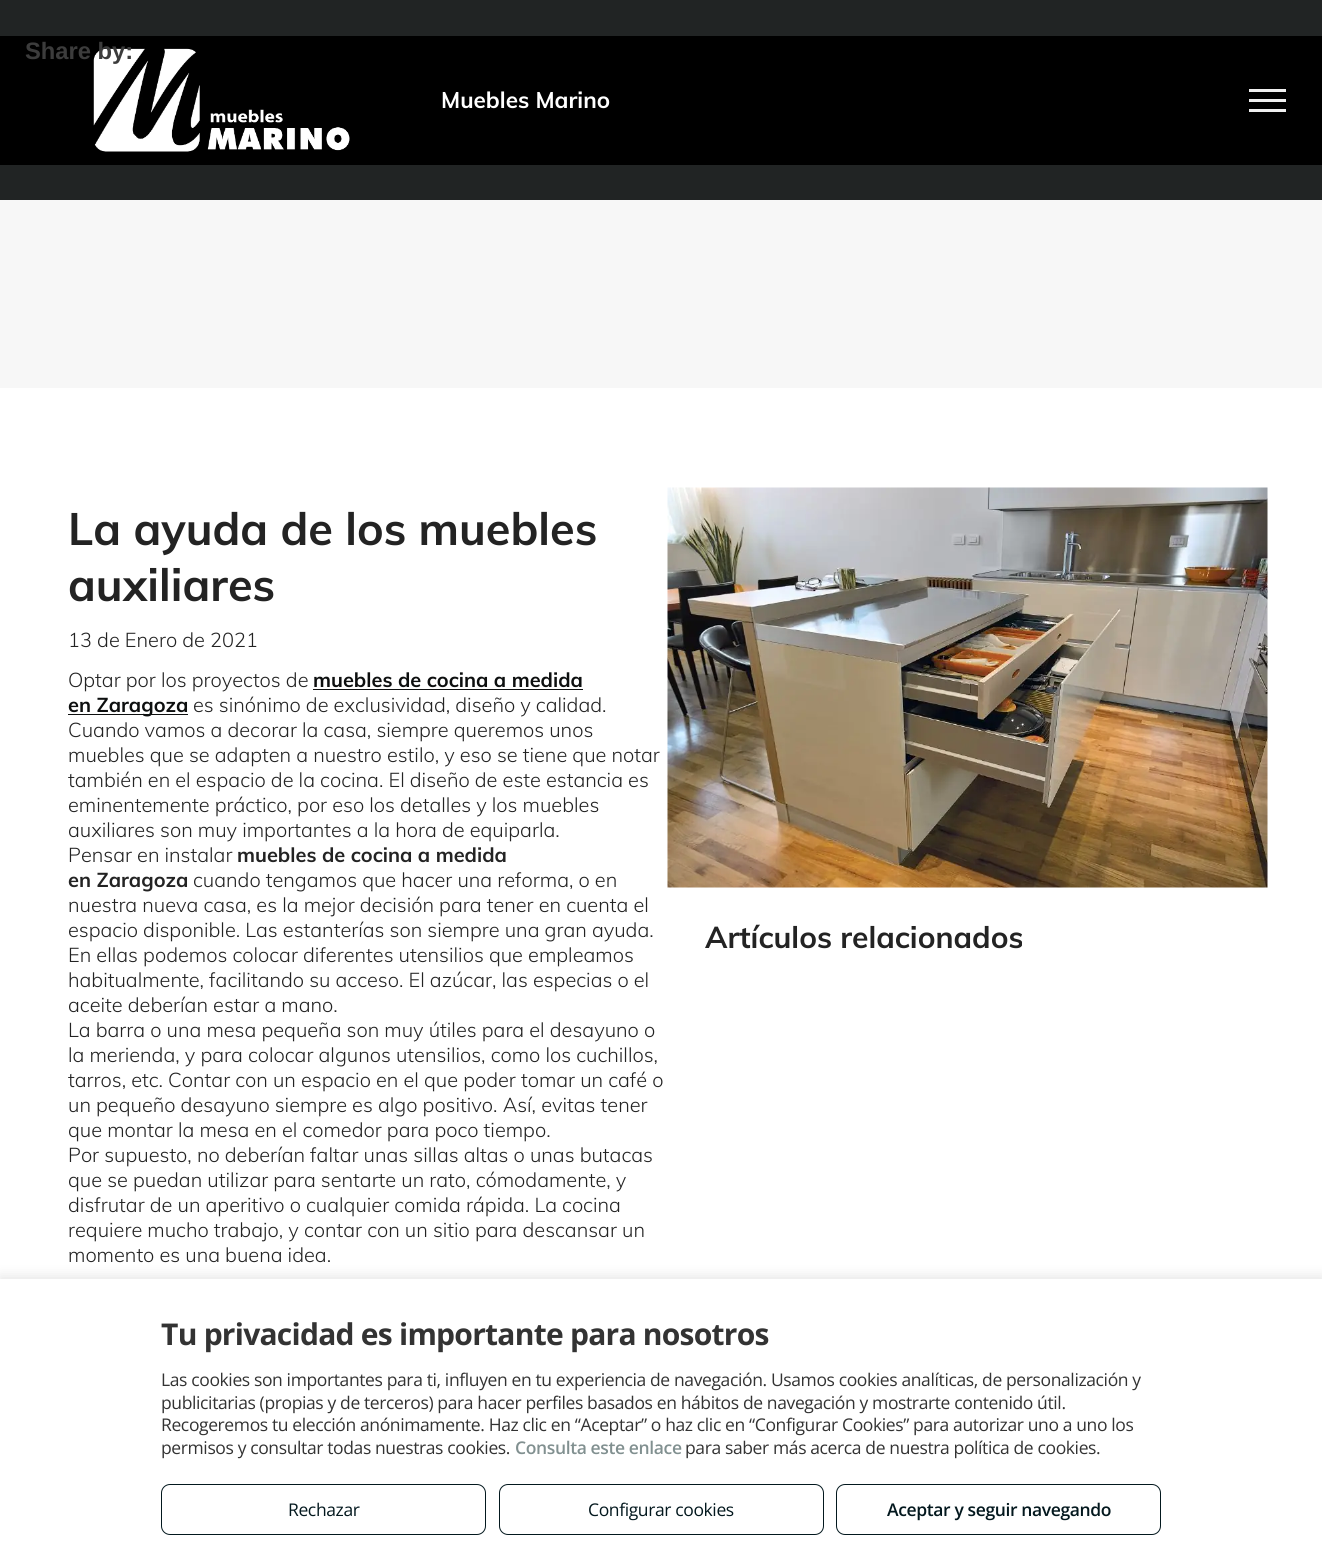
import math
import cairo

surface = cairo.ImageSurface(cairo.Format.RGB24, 1322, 1559)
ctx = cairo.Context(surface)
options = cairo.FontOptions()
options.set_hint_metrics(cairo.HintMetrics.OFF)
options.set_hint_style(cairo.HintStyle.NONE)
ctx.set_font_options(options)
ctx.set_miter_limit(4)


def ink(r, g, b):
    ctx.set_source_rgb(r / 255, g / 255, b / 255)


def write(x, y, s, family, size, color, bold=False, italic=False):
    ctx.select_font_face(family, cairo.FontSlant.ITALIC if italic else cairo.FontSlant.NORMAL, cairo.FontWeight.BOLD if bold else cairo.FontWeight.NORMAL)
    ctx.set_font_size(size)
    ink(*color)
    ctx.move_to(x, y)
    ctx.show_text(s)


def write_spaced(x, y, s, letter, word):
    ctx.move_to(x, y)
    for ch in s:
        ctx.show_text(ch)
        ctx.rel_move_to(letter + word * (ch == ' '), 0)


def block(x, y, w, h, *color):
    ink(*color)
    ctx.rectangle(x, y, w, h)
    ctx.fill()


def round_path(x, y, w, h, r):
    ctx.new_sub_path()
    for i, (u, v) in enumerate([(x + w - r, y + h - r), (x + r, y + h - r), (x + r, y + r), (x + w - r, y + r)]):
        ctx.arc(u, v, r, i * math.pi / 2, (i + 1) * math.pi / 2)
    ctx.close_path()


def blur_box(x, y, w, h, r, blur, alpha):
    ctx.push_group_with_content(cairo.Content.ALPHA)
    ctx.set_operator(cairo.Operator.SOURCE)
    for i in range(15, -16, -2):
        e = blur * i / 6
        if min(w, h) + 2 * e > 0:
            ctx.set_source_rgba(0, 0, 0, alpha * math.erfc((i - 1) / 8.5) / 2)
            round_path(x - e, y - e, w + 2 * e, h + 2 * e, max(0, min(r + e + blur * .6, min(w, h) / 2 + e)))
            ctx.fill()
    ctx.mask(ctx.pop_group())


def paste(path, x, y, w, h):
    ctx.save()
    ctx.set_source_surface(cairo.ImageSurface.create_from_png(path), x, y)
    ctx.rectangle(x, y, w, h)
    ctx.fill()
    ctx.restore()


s1 = dict(family="Liberation Sans", size=23.75, color=(60, 60, 60), bold=True)
s2 = dict(family="Muli", size=22.5, color=(255, 255, 255), bold=True)
s3 = dict(family="Muli", size=45, color=(35, 35, 35), bold=True)
s4 = dict(family="Muli Light", size=20, color=(35, 35, 35))
s5 = dict(family="Muli", size=20, color=(13, 15, 15), bold=True)
s6 = dict(family="Muli", size=20, color=(35, 35, 35), bold=True)
s7 = dict(family="Muli", size=30, color=(35, 35, 35), bold=True)

ink(255, 255, 255)
ctx.paint()
block(0, 0, 1322, 200, 33, 36, 36)
block(0, 36, 1322, 129, 0, 0, 0)
paste("pic1.png", 93, 48, 257, 104)
write(25, 59, "Share by:", **s1)
write(441, 108, "Muebles Marino", **s2)
block(1249, 89, 37, 3, 240, 240, 240)
block(1249, 99, 37, 3, 240, 240, 240)
block(1249, 109, 37, 3, 240, 240, 240)
block(0, 200, 1322, 188, 247, 247, 247)
write(68, 545, "La ayuda de los muebles", **s3)
write(68, 601, "auxiliares", **s3)
write(68, 647, "13 de Enero de 2021", **s4)
write(68, 687, "Optar por los proyectos de", **s4)
write(313, 687, "muebles de cocina a medida", **s5)
block(313, 689, 270, 1, 13, 15, 15)
block(68, 714, 120, 1, 13, 15, 15)
write(68, 712, "en Zaragoza", **s5)
write(193, 712, "es sinónimo de exclusividad, diseño y calidad.", **s4)
write(68, 737, "Cuando vamos a decorar la casa, siempre queremos unos", **s4)
write(68, 762, "muebles que se adapten a nuestro estilo, y eso se tiene que notar", **s4)
write(68, 787, "también en el espacio de la cocina. El diseño de este estancia es", **s4)
write(68, 812, "eminentemente práctico, por eso los detalles y los muebles", **s4)
write(68, 837, "auxiliares son muy importantes a la hora de equiparla.", **s4)
write(68, 862, "Pensar en instalar", **s4)
write(237, 862, "muebles de cocina a medida", **s6)
write(68, 887, "en Zaragoza", **s6)
write(193, 887, "cuando tengamos que hacer una reforma, o en", **s4)
write(68, 912, "nuestra nueva casa, es la mejor decisión para tener en cuenta el", **s4)
write(68, 937, "espacio disponible. Las estanterías son siempre una gran ayuda.", **s4)
write(68, 962, "En ellas podemos colocar diferentes utensilios que empleamos", **s4)
write(68, 987, "habitualmente, facilitando su acceso. El azúcar, las especias o el", **s4)
write(68, 1012, "aceite deberían estar a mano.", **s4)
write(68, 1037, "La barra o una mesa pequeña son muy útiles para el desayuno o", **s4)
write(68, 1062, "la merienda, y para colocar algunos utensilios, como los cuchillos,", **s4)
write(68, 1087, "tarros, etc. Contar con un espacio en el que poder tomar un café o", **s4)
write(68, 1112, "un pequeño desayuno siempre es algo positivo. Así, evitas tener", **s4)
write(68, 1137, "que montar la mesa en el comedor para poco tiempo.", **s4)
write(68, 1162, "Por supuesto, no deberían faltar unas sillas altas o unas butacas", **s4)
write(68, 1187, "que se puedan utilizar para sentarte un rato, cómodamente, y", **s4)
write(68, 1212, "disfrutar de un aperitivo o cualquier comida rápida. La cocina", **s4)
write(68, 1237, "requiere mucho trabajo, y contar con un sitio para descansar un", **s4)
write(68, 1262, "momento es una buena idea.", **s4)
paste("pic2.png", 667, 487, 601, 401)
write(705, 948, "Artículos relacionados", **s7)
ink(0, 0, 0)
blur_box(0, 1276, 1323, 282, 0, 6, 0.1)
block(0, 1279, 1322, 280, 255, 255, 255)
ctx.select_font_face("Open Sans", cairo.FontSlant.NORMAL, cairo.FontWeight.BOLD)
ink(51, 51, 51)
write_spaced(161, 1345, "Tu privacidad es importante para nosotros", -0.75, 0)
ctx.select_font_face("Open Sans")
ctx.set_font_size(17.5)
write_spaced(161, 1386, "Las cookies son importantes para ti, influyen en tu experiencia de navegación. Usamos cookies analíticas, de personalización y", -0.38, 0)
write_spaced(161, 1409, "publicitarias (propias y de terceros) para hacer perfiles basados en hábitos de navegación y mostrarte contenido útil.", -0.38, 0)
write_spaced(161, 1431, "Recogeremos tu elección anónimamente. Haz clic en “Aceptar” o haz clic en “Configurar Cookies” para autorizar uno a uno los", -0.38, 0)
write_spaced(161, 1454, "permisos y consultar todas nuestras cookies.", -0.38, 0)
ctx.select_font_face("Open Sans SemiBold")
ink(129, 144, 144)
write_spaced(515, 1454, "Consulta este enlace", -0.38, 0)
ctx.select_font_face("Open Sans")
ink(51, 51, 51)
write_spaced(685, 1454, "para saber más acerca de nuestra política de cookies.", -0.38, 0)
round_path(161.5, 1484.5, 324, 50, 8.5)
ink(3, 24, 30)
ctx.set_line_width(1)
ctx.stroke()
write_spaced(288, 1516, "Rechazar", -0.38, 0)
round_path(499.5, 1484.5, 324, 50, 8.5)
ctx.stroke()
write_spaced(588, 1516, "Configurar cookies", -0.38, 0)
round_path(836.5, 1484.5, 324, 50, 8.5)
ctx.stroke()
ctx.select_font_face("Open Sans SemiBold")
write_spaced(887, 1516, "Aceptar y seguir navegando", -0.38, 0)
surface.write_to_png("screenshot.png")
